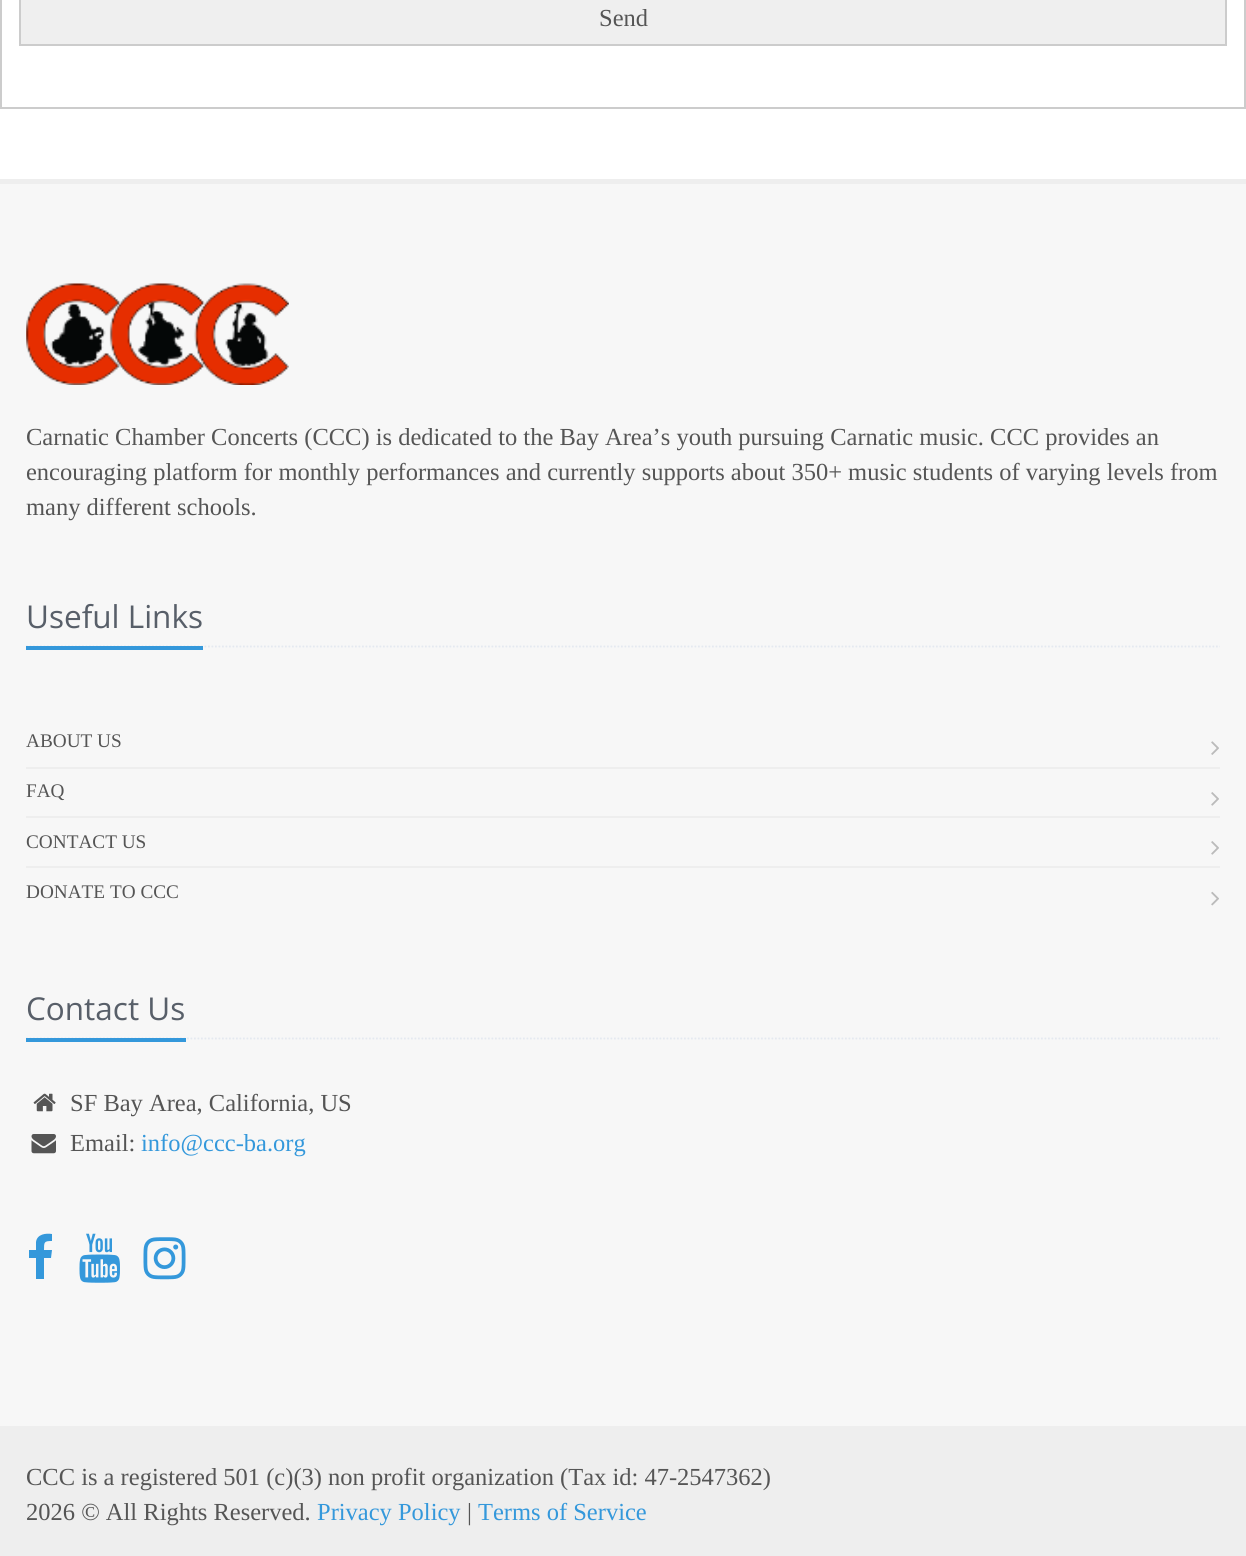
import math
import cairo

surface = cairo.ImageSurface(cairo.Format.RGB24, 1246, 1556)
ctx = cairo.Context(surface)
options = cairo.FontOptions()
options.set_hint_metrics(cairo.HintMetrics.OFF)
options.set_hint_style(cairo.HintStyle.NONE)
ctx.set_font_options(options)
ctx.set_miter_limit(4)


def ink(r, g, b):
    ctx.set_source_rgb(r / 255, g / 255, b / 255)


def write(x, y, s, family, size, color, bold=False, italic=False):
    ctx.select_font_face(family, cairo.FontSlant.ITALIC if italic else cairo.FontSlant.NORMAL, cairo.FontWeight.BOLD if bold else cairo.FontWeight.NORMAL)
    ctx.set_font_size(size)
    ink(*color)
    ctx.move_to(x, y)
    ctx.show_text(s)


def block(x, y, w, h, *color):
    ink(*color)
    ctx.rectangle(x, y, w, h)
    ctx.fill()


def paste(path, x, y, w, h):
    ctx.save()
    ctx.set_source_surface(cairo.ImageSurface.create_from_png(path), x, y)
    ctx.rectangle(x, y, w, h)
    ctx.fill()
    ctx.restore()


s1 = dict(family="Liberation Serif", size=24.5, color=(85, 85, 85))
s2 = dict(family="Open Sans", size=31.5, color=(88, 95, 105))
s3 = dict(family="Liberation Serif", size=19.25, color=(85, 85, 85))
s4 = dict(family="Liberation Serif", size=24.5, color=(52, 152, 219))

ink(255, 255, 255)
ctx.paint()
ctx.rectangle(1, -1, 1244, 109)
ink(204, 204, 204)
ctx.stroke()
ink(239, 239, 239)
ctx.rectangle(20, -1, 1206, 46)
ctx.fill_preserve()
ink(204, 204, 204)
ctx.stroke()
write(599, 26, "Send", **s1)
block(0, 184, 1246, 1242, 247, 247, 247)
block(0, 179, 1246, 5, 238, 238, 238)
paste("pic1.png", 26, 283, 263, 102)
write(26, 445, "Carnatic Chamber Concerts (CCC) is dedicated to the Bay Area’s youth pursuing Carnatic music. CCC provides an", **s1)
write(26, 480, "encouraging platform for monthly performances and currently supports about 350+ music students of varying levels from", **s1)
write(26, 515, "many different schools.", **s1)
ctx.new_path()
ctx.move_to(26, 646.5)
ctx.line_to(1220, 646.5)
ink(228, 233, 240)
ctx.set_line_width(1.8)
ctx.set_dash([1.75, 1.75])
ctx.stroke()
block(26, 646, 177, 4, 52, 152, 219)
write(26, 628, "Useful Links", **s2)
write(26, 747, "ABOUT US", **s3)
paste("pic2.png", 1211, 741, 8, 14)
block(26, 767, 1194, 2, 238, 238, 238)
write(26, 797, "FAQ", **s3)
paste("pic3.png", 1211, 792, 8, 14)
block(26, 816, 1194, 2, 238, 238, 238)
write(26, 848, "CONTACT US", **s3)
paste("pic3.png", 1211, 841, 8, 14)
block(26, 866, 1194, 2, 238, 238, 238)
write(26, 898, "DONATE TO CCC", **s3)
paste("pic4.png", 1211, 891, 8, 15)
ctx.new_path()
ctx.move_to(26, 1038.5)
ctx.line_to(1220, 1038.5)
ink(228, 233, 240)
ctx.stroke()
block(26, 1038, 160, 4, 52, 152, 219)
write(26, 1020, "Contact Us", **s2)
paste("pic5.png", 33, 1093, 23, 19)
write(70, 1111, "SF Bay Area, California, US", **s1)
paste("pic6.png", 31, 1134, 25, 20)
write(70, 1151, "Email:", **s1)
write(141, 1151, "info@ccc-ba.org", **s4)
ctx.new_path()
ctx.move_to(52, 1234)
ctx.curve_to(46, 1233, 37, 1234, 36, 1242)
ctx.line_to(36, 1250)
ctx.line_to(29, 1250)
ctx.line_to(29, 1258)
ctx.line_to(36, 1258)
ctx.line_to(36, 1279)
ctx.line_to(44, 1279)
ctx.line_to(44, 1258)
ctx.line_to(51, 1258)
ctx.line_to(52, 1250)
ctx.line_to(44, 1250)
ctx.curve_to(44, 1242, 44, 1241, 52, 1241)
ctx.close_path()
ctx.fill()
paste("pic7.png", 79, 1233, 41, 50)
paste("pic8.png", 143, 1237, 43, 43)
block(0, 1426, 1246, 130, 238, 238, 238)
write(26, 1485, "CCC is a registered 501 (c)(3) non profit organization (Tax id: 47-2547362)", **s1)
write(26, 1520, "2026 © All Rights Reserved.", **s1)
write(317, 1520, "Privacy Policy", **s4)
write(467, 1520, "|", **s1)
write(478, 1520, "Terms of Service", **s4)
surface.write_to_png("screenshot.png")
